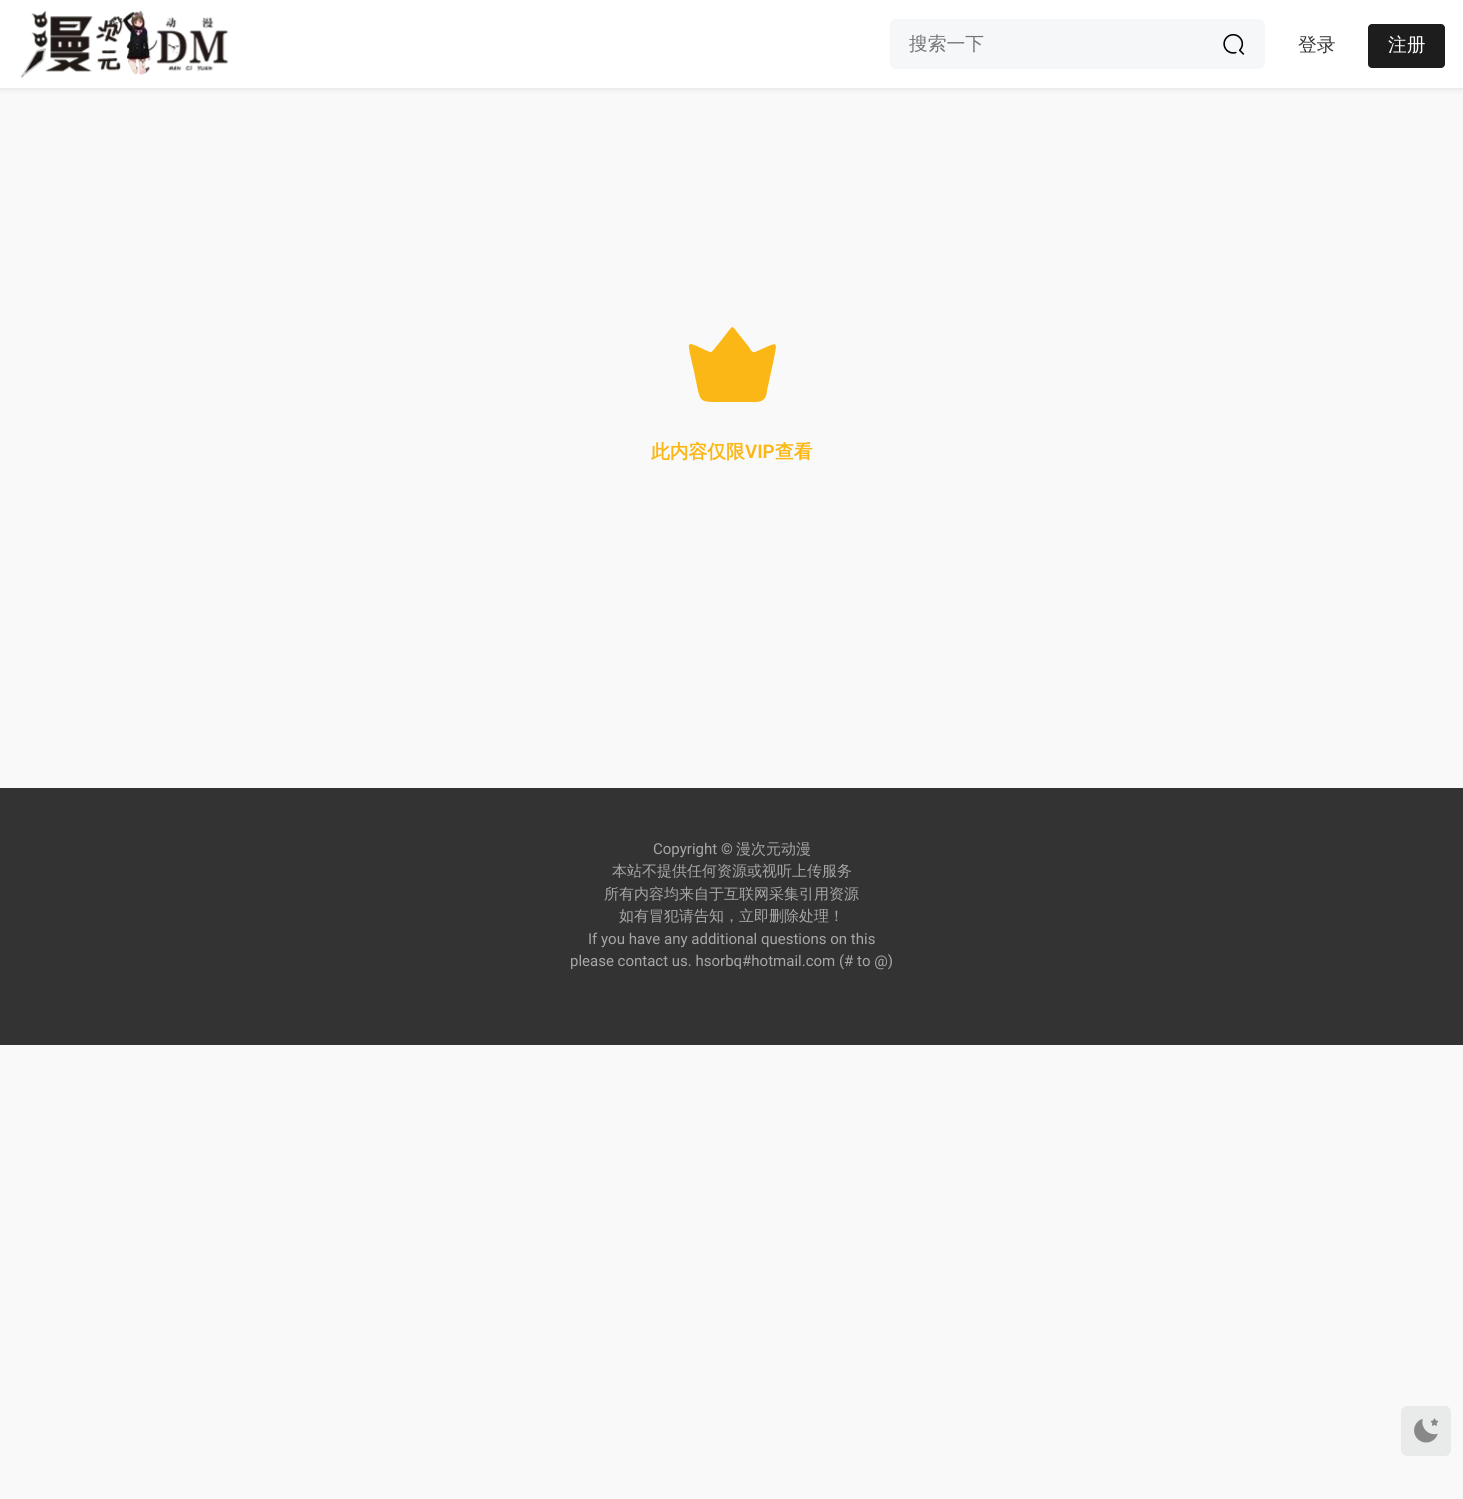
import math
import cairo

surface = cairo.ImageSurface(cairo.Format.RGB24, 1463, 1499)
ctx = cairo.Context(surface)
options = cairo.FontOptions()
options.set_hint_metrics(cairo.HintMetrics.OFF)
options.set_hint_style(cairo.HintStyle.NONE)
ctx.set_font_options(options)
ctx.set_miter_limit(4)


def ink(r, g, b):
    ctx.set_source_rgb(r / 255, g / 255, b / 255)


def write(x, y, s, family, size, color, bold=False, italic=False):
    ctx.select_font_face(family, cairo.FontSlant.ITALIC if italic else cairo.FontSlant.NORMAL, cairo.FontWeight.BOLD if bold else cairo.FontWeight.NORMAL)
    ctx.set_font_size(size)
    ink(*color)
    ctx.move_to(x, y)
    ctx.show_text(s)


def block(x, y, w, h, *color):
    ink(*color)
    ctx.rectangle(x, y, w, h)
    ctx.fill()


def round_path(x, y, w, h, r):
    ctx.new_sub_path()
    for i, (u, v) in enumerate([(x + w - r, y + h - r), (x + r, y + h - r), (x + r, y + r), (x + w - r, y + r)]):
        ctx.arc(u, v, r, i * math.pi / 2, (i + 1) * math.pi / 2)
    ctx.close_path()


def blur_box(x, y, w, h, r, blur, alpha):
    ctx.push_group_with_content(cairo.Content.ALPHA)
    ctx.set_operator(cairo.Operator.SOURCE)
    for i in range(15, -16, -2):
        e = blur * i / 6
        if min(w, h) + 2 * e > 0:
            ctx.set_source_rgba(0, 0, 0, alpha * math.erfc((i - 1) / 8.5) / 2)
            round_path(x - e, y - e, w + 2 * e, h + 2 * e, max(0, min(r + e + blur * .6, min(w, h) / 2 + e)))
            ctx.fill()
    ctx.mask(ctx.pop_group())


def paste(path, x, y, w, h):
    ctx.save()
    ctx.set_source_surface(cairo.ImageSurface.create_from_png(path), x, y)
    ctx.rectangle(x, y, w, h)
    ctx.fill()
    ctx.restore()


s1 = dict(family="WenQuanYi Zen Hei Medium", size=18.75, color=(117, 117, 117))
s2 = dict(family="WenQuanYi Zen Hei Medium", size=18.75, color=(51, 51, 51))
s3 = dict(family="WenQuanYi Zen Hei Medium", size=18.75, color=(255, 255, 255))
s4 = dict(family="WenQuanYi Zen Hei", size=18.75, color=(251, 183, 21), bold=True)
s5 = dict(family="Roboto SemiBold", size=18.75, color=(251, 183, 21))
s6 = dict(family="Roboto", size=15, color=(167, 167, 167))
s7 = dict(family="WenQuanYi Zen Hei Medium", size=15, color=(167, 167, 167))

ink(249, 249, 249)
ctx.paint()
ink(0, 0, 0)
blur_box(0, 1, 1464, 88, 0, 3, 0.1)
block(0, 0, 1463, 88, 255, 255, 255)
paste("pic1.png", 20, 10, 209, 69)
ink(246, 247, 249)
round_path(890, 19, 375, 50, 6)
ctx.fill()
write(909, 50, "搜索一下", **s1)
paste("pic2.png", 1223, 33, 22, 22)
write(1298, 51, "登录", **s2)
ink(29, 29, 29)
round_path(1368, 24, 77, 44, 4)
ctx.fill()
write(1388, 51, "注册", **s3)
ink(251, 183, 21)
ctx.new_path()
ctx.move_to(731, 328)
ctx.curve_to(733, 325, 736, 331, 737, 332)
ctx.line_to(749, 347)
ctx.curve_to(750, 349, 752, 353, 755, 352)
ctx.curve_to(779, 342, 778, 338, 773, 363)
ctx.line_to(768, 386)
ctx.curve_to(767, 389, 767, 395, 765, 398)
ctx.curve_to(761, 403, 755, 402, 749, 402)
ctx.line_to(716, 402)
ctx.curve_to(701, 402, 700, 401, 697, 386)
ctx.line_to(694, 371)
ctx.curve_to(693, 367, 688, 347, 689, 345)
ctx.curve_to(691, 341, 706, 352, 711, 352)
ctx.curve_to(713, 352, 728, 331, 731, 328)
ctx.close_path()
ctx.fill()
write(651, 458, "此内容仅限", **s4)
write(745, 458, "VIP", **s5)
write(775, 458, "查看", **s4)
block(0, 788, 1463, 257, 51, 51, 51)
write(653, 854, "Copyright ©", **s6)
write(736, 854, "漫次元动漫", **s7)
write(612, 876, "本站不提供任何资源或视听上传服务", **s7)
write(604, 899, "所有内容均来自于互联网采集引用资源", **s7)
write(619, 921, "如有冒犯请告知，立即删除处理！", **s7)
write(588, 944, "If you have any additional questions on this", **s6)
write(570, 966, "please contact us. hsorbq#hotmail.com (# to @)", **s6)
ink(233, 234, 234)
round_path(1401, 1406, 50, 50, 6)
ctx.fill()
paste("pic3.png", 1414, 1418, 25, 25)
surface.write_to_png("screenshot.png")
